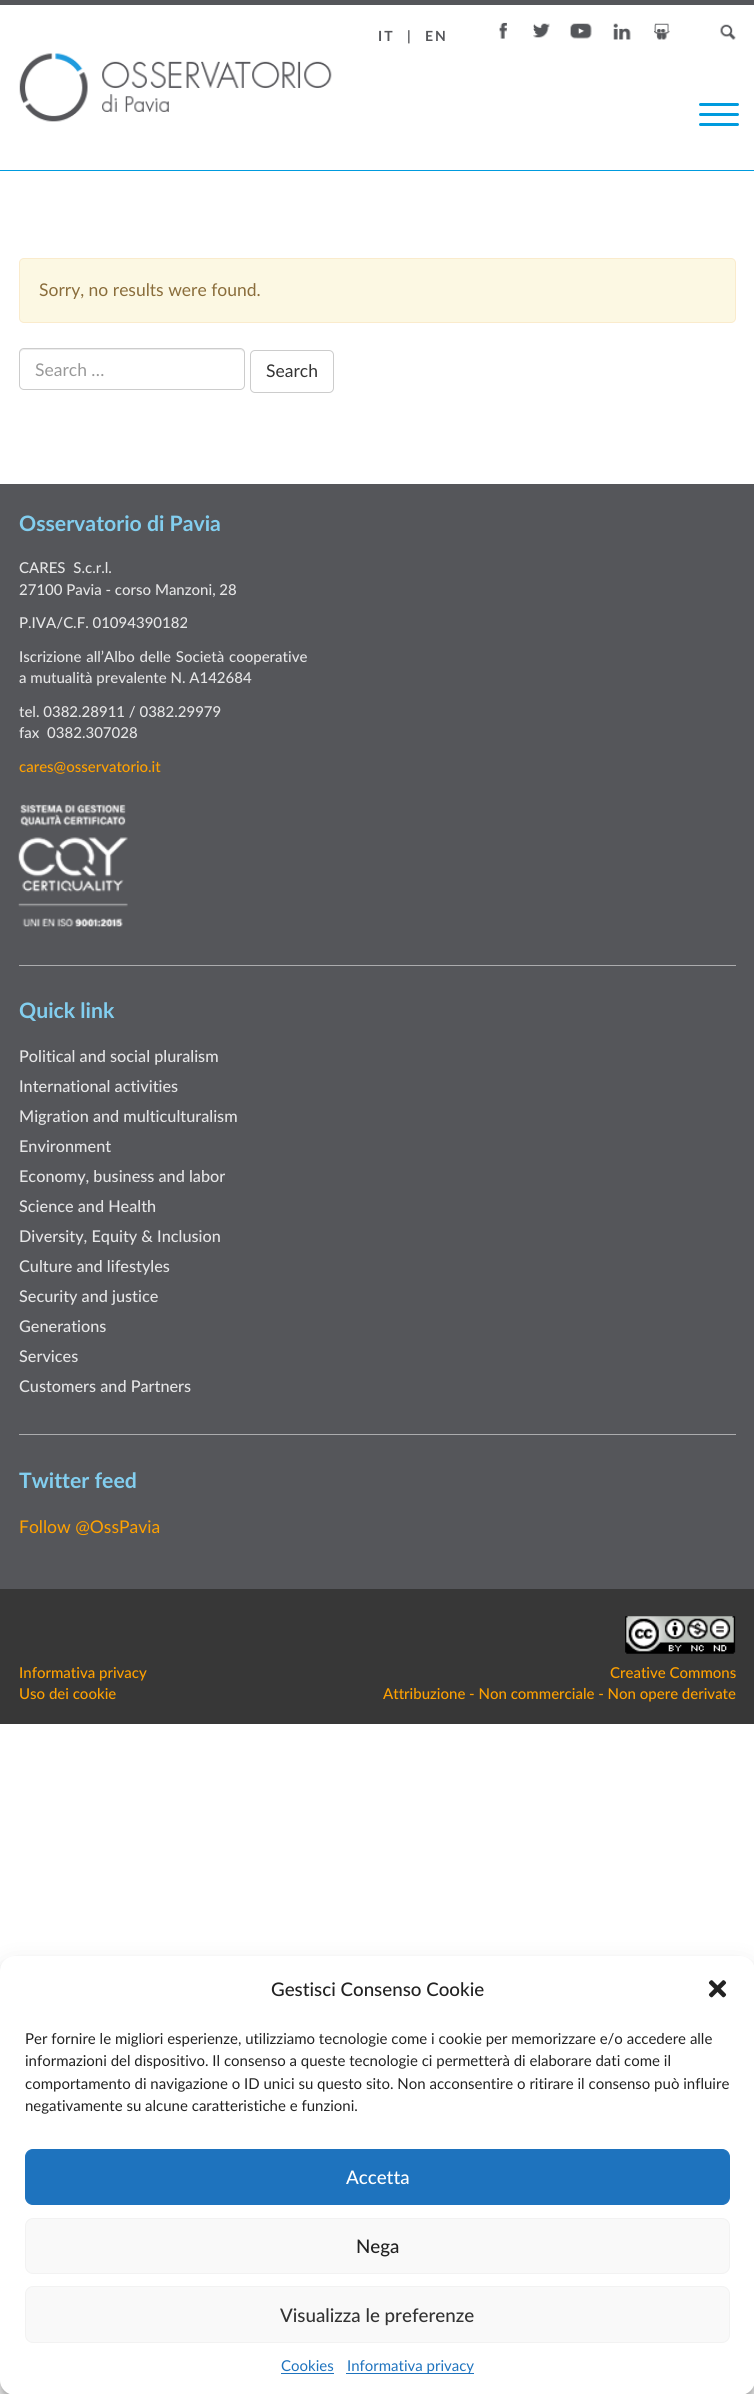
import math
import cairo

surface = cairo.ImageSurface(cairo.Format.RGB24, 754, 2394)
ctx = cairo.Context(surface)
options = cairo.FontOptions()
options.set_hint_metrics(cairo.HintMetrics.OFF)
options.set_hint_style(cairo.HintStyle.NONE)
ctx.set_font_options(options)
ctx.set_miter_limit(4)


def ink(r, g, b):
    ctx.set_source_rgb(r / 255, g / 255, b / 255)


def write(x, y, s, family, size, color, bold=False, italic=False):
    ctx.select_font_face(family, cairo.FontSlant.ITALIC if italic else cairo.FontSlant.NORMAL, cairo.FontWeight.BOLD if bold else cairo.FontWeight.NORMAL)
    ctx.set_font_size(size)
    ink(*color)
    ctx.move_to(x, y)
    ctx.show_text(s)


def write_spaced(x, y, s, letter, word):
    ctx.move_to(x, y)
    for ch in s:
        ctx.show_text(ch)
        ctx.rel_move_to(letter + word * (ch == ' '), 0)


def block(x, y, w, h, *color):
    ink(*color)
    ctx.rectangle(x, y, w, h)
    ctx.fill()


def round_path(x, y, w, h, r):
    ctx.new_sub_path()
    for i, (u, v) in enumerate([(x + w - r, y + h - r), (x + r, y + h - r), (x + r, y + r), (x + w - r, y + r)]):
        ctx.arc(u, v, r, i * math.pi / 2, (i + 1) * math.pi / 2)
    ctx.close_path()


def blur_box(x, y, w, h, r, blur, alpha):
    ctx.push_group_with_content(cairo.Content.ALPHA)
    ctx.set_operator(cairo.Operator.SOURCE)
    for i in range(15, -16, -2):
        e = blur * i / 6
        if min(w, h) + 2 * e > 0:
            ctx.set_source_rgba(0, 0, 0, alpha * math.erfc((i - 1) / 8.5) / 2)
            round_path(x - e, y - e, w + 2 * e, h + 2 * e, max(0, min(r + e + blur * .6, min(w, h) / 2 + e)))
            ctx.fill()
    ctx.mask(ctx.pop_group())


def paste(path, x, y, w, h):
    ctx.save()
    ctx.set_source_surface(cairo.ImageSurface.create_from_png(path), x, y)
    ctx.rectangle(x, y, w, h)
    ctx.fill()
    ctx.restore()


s1 = dict(family="Lato", size=17.5, color=(138, 109, 59))
s2 = dict(family="Lato", size=17.5, color=(153, 153, 153))
s3 = dict(family="Lato", size=17.5, color=(51, 51, 51))
s4 = dict(family="Lato", size=21.25, color=(130, 206, 239), bold=True)
s5 = dict(family="Lato Medium", size=15, color=(229, 229, 230))
s6 = dict(family="Lato Medium", size=15, color=(255, 161, 0))
s7 = dict(family="Lato Medium", size=16.25, color=(229, 229, 230))
s8 = dict(family="Lato", size=17.5, color=(255, 161, 0))
s9 = dict(family="Lato Medium", size=18.75, color=(34, 34, 34))
s10 = dict(family="Lato", size=15, color=(34, 34, 34))
s11 = dict(family="Lato Medium", size=18.75, color=(255, 255, 255))
s12 = dict(family="Lato Medium", size=18.75, color=(51, 51, 51))
s13 = dict(family="Lato", size=15, color=(30, 115, 190))

ink(255, 255, 255)
ctx.paint()
block(0, 0, 754, 5, 85, 86, 90)
ctx.select_font_face("Lato", cairo.FontSlant.NORMAL, cairo.FontWeight.BOLD)
ctx.set_font_size(14)
write_spaced(378, 41, "IT", 2, 0)
write_spaced(407, 41, "|", 2, 0)
write_spaced(425, 41, "EN", 2, 0)
paste("pic1.png", 499, 22, 8, 17)
paste("pic2.png", 533, 23, 17, 15)
paste("pic3.png", 570, 23, 22, 16)
paste("pic4.png", 613, 23, 18, 17)
paste("pic5.png", 654, 23, 16, 17)
paste("pic6.png", 720, 24, 16, 16)
paste("pic7.png", 19, 53, 313, 69)
ink(0, 155, 222)
round_path(699, 103, 40, 3, 1.5)
ctx.fill()
round_path(699, 113, 40, 3, 1.5)
ctx.fill()
round_path(699, 123, 40, 3, 1.5)
ctx.fill()
block(0, 170, 754, 1, 0, 155, 222)
ink(252, 248, 227)
round_path(19.5, 258.5, 716, 64, 4.5)
ctx.fill_preserve()
ink(250, 235, 204)
ctx.set_line_width(1)
ctx.stroke()
write(39, 296, "Sorry, no results were found.", **s1)
ink(236, 236, 236)
ctx.new_path()
ctx.move_to(24, 350)
ctx.line_to(240, 350)
ctx.curve_to(242, 350, 244, 352, 244, 354)
ctx.curve_to(244, 351, 243, 349, 240, 349)
ctx.line_to(24, 349)
ctx.curve_to(21, 349, 20, 351, 20, 354)
ctx.curve_to(20, 352, 22, 350, 24, 350)
ctx.close_path()
ctx.fill()
round_path(19.5, 348.5, 225, 41, 4.5)
ink(204, 204, 204)
ctx.stroke()
write(35, 376, "Search …", **s2)
round_path(250.5, 350.5, 83, 42, 4.5)
ink(204, 204, 204)
ctx.stroke()
write(266, 377, "Search", **s3)
block(0, 484, 754, 1105, 85, 86, 90)
block(19, 965, 717, 1, 172, 172, 174)
write(19, 531, "Osservatorio di Pavia", **s4)
ctx.select_font_face("Lato Medium")
ctx.set_font_size(15)
ink(229, 229, 230)
write_spaced(19, 573, "CARES S.c.r.l.", 0, 4)
write(19, 595, "27100 Pavia - corso Manzoni, 28", **s5)
write(19, 628, "P.IVA/C.F. 01094390182", **s5)
write_spaced(19, 662, "Iscrizione all’Albo delle Società cooperative", 0, 1)
write(19, 683, "a mutualità prevalente N. A142684", **s5)
write(19, 717, "tel. 0382.28911 / 0382.29979", **s5)
write_spaced(19, 738, "fax 0382.307028", 0, 4)
write(19, 772, "cares@osservatorio.it", **s6)
paste("pic8.png", 18, 804, 110, 123)
block(19, 1434, 717, 1, 172, 172, 174)
write(19, 1018, "Quick link", **s4)
write(19, 1062, "Political and social pluralism", **s7)
write(19, 1092, "International activities", **s7)
write(19, 1122, "Migration and multiculturalism", **s7)
write(19, 1152, "Environment", **s7)
write(19, 1182, "Economy, business and labor", **s7)
write(19, 1212, "Science and Health", **s7)
write(19, 1242, "Diversity, Equity & Inclusion", **s7)
write(19, 1272, "Culture and lifestyles", **s7)
write(19, 1302, "Security and justice", **s7)
write(19, 1332, "Generations", **s7)
write(19, 1362, "Services", **s7)
write(19, 1392, "Customers and Partners", **s7)
write(19, 1488, "Twitter feed", **s4)
write(19, 1533, "Follow @OssPavia", **s8)
block(0, 1589, 754, 135, 55, 55, 55)
write(19, 1678, "Informativa privacy", **s6)
write(19, 1699, "Uso dei cookie", **s6)
paste("pic9.png", 625, 1616, 111, 38)
write(610, 1678, "Creative Commons", **s6)
write(383, 1699, "Attribuzione - Non commerciale - Non opere derivate", **s6)
ink(0, 0, 0)
blur_box(0, 1964, 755, 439, 15, 4, 0.23)
blur_box(0, 1969, 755, 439, 15, 12.5, 0.19)
ink(255, 255, 255)
round_path(0, 1956, 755, 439, 15)
ctx.fill()
write(271, 1996, "Gestisci Consenso Cookie", **s9)
paste("pic10.png", 708, 1980, 19, 18)
write(25, 2044, "Per fornire le migliori esperienze, utilizziamo tecnologie come i cookie per memorizzare e/o accedere alle", **s10)
write(25, 2066, "informazioni del dispositivo. Il consenso a queste tecnologie ci permetterà di elaborare dati come il", **s10)
write(25, 2089, "comportamento di navigazione o ID unici su questo sito. Non acconsentire o ritirare il consenso può influire", **s10)
write(25, 2111, "negativamente su alcune caratteristiche e funzioni.", **s10)
ink(30, 115, 190)
round_path(25.5, 2149.5, 704, 55, 7.5)
ctx.fill_preserve()
ctx.stroke()
write(346, 2184, "Accetta", **s11)
ink(249, 249, 249)
round_path(25.5, 2218.5, 704, 55, 7.5)
ctx.fill_preserve()
ink(242, 242, 242)
ctx.stroke()
write(356, 2253, "Nega", **s9)
ink(249, 249, 249)
round_path(25.5, 2286.5, 704, 56, 7.5)
ctx.fill_preserve()
ink(242, 242, 242)
ctx.stroke()
write(280, 2322, "Visualizza le preferenze", **s12)
write(281, 2371, "Cookies", **s13)
block(281, 2373, 53, 1, 30, 115, 190)
block(346, 2373, 128, 1, 30, 115, 190)
write(347, 2371, "Informativa privacy", **s13)
surface.write_to_png("screenshot.png")
